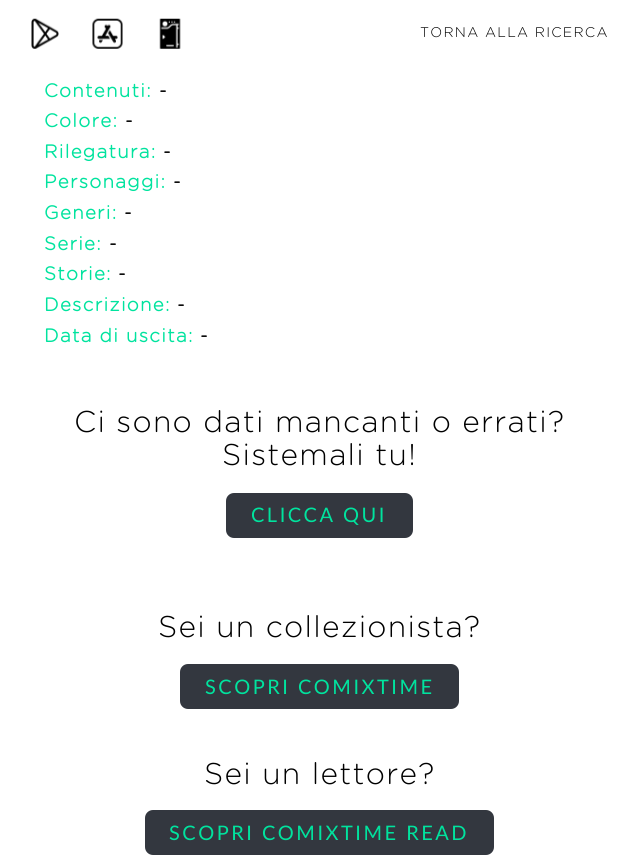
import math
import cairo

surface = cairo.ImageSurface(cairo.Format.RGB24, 638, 868)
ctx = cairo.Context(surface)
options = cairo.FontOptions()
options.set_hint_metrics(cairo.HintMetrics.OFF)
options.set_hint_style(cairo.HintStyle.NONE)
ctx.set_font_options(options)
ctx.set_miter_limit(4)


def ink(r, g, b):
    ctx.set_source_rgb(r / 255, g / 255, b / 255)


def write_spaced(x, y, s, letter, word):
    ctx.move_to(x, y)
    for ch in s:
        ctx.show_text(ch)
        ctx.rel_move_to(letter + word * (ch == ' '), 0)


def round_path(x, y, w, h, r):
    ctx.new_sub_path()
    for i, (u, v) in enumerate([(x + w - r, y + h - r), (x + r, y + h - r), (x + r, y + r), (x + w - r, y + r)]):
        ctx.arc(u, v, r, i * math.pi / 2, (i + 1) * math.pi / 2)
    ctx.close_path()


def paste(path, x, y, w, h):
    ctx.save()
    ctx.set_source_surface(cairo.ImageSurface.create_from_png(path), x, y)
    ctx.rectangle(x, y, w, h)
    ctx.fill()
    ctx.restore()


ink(255, 255, 255)
ctx.paint()
paste("pic1.png", 31, 18, 28, 31)
paste("pic2.png", 92, 18, 31, 31)
paste("pic3.png", 159, 18, 22, 31)
ctx.select_font_face("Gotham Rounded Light")
ctx.set_font_size(14)
ink(0, 0, 0)
write_spaced(420, 37, "TORNA ALLA RICERCA", 1.25, 0)
ctx.select_font_face("Gotham Rounded", cairo.FontSlant.NORMAL, cairo.FontWeight.BOLD)
ctx.set_font_size(18.75)
ink(0, 227, 158)
write_spaced(44, 97, "Contenuti:", 1.25, 0)
ink(0, 0, 0)
write_spaced(159, 97, "-", 1.25, 0)
ink(0, 227, 158)
write_spaced(44, 127, "Colore:", 1.25, 0)
ink(0, 0, 0)
write_spaced(125, 127, "-", 1.25, 0)
ink(0, 227, 158)
write_spaced(44, 158, "Rilegatura:", 1.25, 0)
ink(0, 0, 0)
write_spaced(163, 158, "-", 1.25, 0)
ink(0, 227, 158)
write_spaced(44, 188, "Personaggi:", 1.25, 0)
ink(0, 0, 0)
write_spaced(173, 188, "-", 1.25, 0)
ink(0, 227, 158)
write_spaced(44, 219, "Generi:", 1.25, 0)
ink(0, 0, 0)
write_spaced(124, 219, "-", 1.25, 0)
ink(0, 227, 158)
write_spaced(44, 250, "Serie:", 1.25, 0)
ink(0, 0, 0)
write_spaced(109, 250, "-", 1.25, 0)
ink(0, 227, 158)
write_spaced(44, 280, "Storie:", 1.25, 0)
ink(0, 0, 0)
write_spaced(118, 280, "-", 1.25, 0)
ink(0, 227, 158)
write_spaced(44, 311, "Descrizione:", 1.25, 0)
ink(0, 0, 0)
write_spaced(177, 311, "-", 1.25, 0)
ink(0, 227, 158)
write_spaced(44, 342, "Data di uscita:", 1.25, 0)
ink(0, 0, 0)
write_spaced(200, 342, "-", 1.25, 0)
ctx.select_font_face("Gotham Rounded Light")
ctx.set_font_size(30)
write_spaced(74, 432, "Ci sono dati mancanti o errati?", 1.25, 0)
write_spaced(222, 465, "Sistemali tu!", 1.25, 0)
ink(51, 55, 63)
round_path(226, 493, 187, 45, 8)
ctx.fill()
ctx.select_font_face("Lato")
ctx.set_font_size(20)
ink(0, 227, 158)
write_spaced(251, 522, "CLICCA QUI", 2.5, 0)
ctx.select_font_face("Gotham Rounded Light")
ctx.set_font_size(30)
ink(0, 0, 0)
write_spaced(158, 637, "Sei un collezionista?", 1.25, 0)
ink(51, 55, 63)
round_path(180, 664, 279, 45, 8)
ctx.fill()
ctx.select_font_face("Lato")
ctx.set_font_size(20)
ink(0, 227, 158)
write_spaced(205, 694, "SCOPRI COMIXTIME", 2.5, 0)
ctx.select_font_face("Gotham Rounded Light")
ctx.set_font_size(30)
ink(0, 0, 0)
write_spaced(204, 784, "Sei un lettore?", 1.25, 0)
ink(51, 55, 63)
round_path(145, 810, 349, 45, 8)
ctx.fill()
ctx.select_font_face("Lato")
ctx.set_font_size(20)
ink(0, 227, 158)
write_spaced(169, 840, "SCOPRI COMIXTIME READ", 2.5, 0)
surface.write_to_png("screenshot.png")
